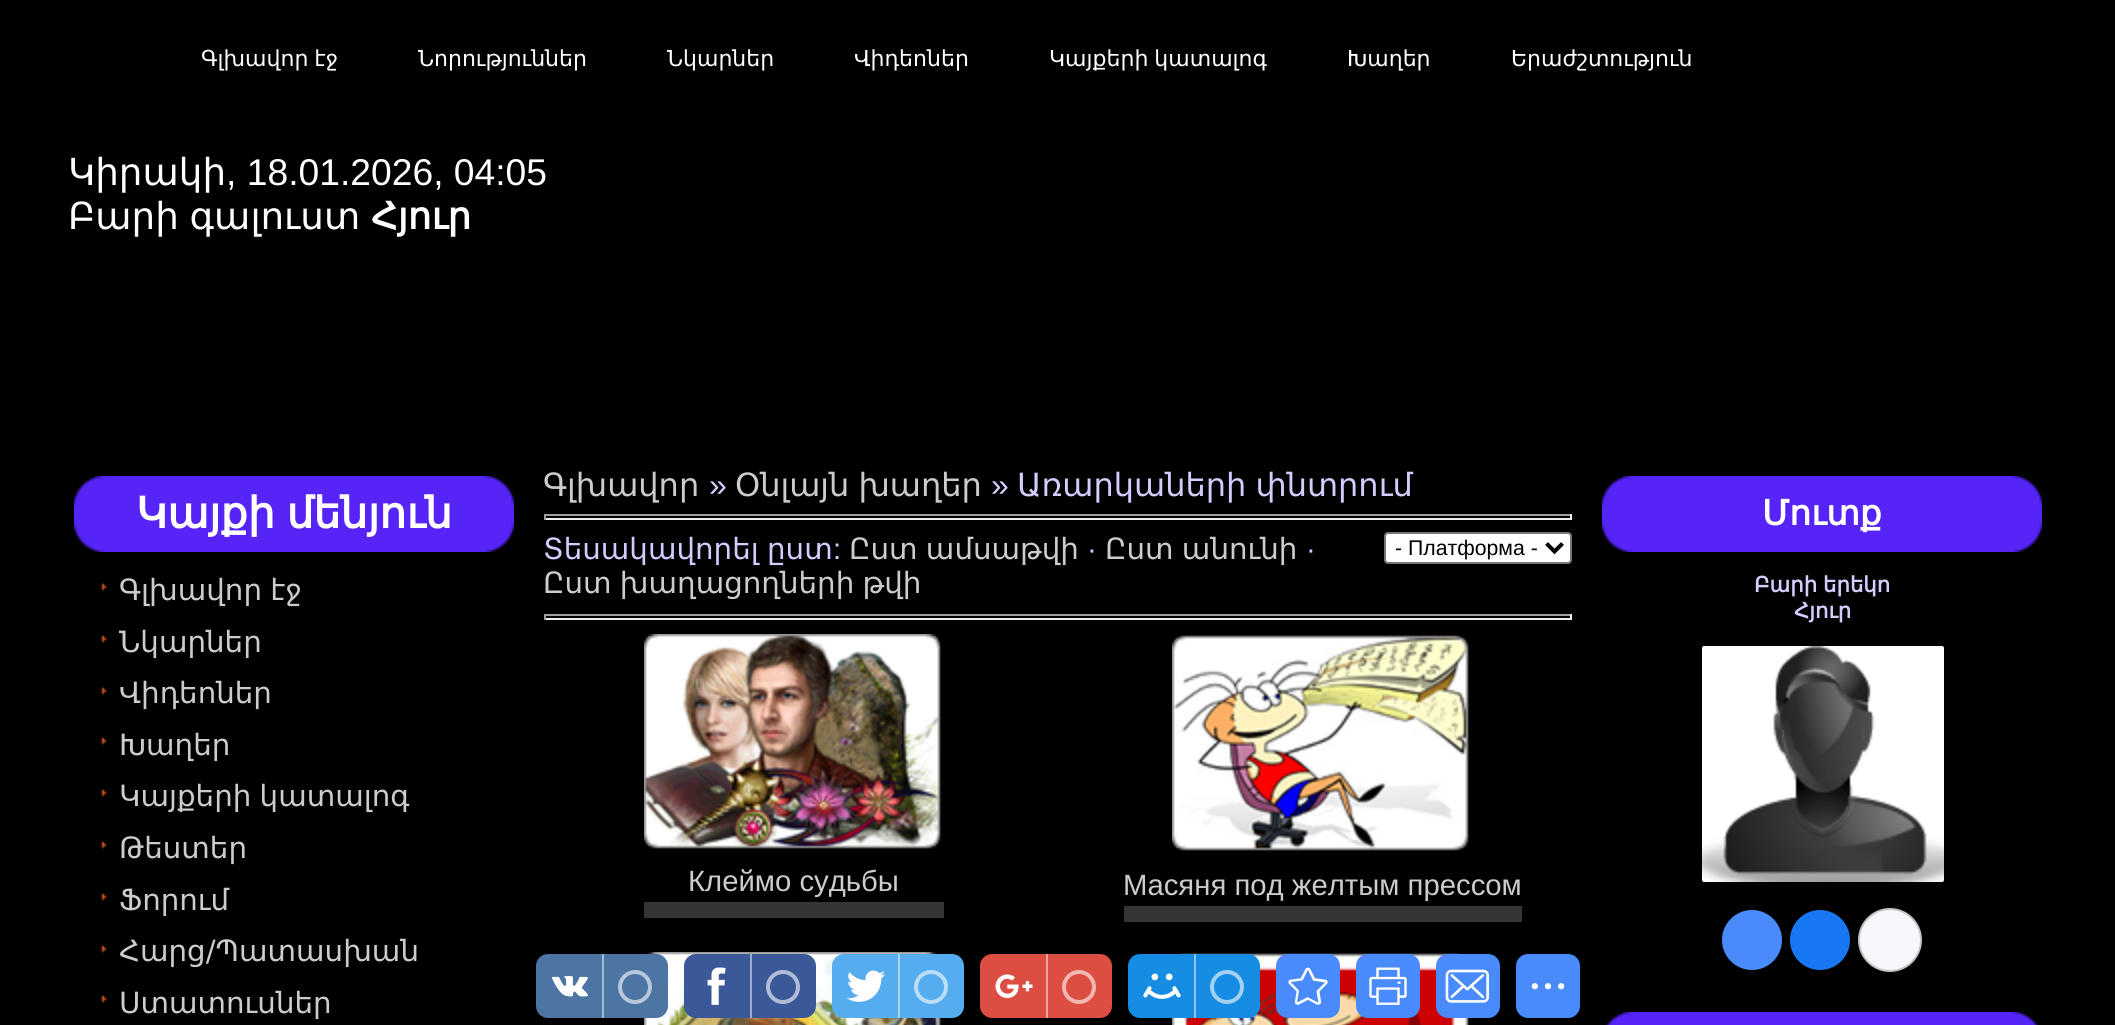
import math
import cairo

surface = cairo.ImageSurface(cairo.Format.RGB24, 2115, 1025)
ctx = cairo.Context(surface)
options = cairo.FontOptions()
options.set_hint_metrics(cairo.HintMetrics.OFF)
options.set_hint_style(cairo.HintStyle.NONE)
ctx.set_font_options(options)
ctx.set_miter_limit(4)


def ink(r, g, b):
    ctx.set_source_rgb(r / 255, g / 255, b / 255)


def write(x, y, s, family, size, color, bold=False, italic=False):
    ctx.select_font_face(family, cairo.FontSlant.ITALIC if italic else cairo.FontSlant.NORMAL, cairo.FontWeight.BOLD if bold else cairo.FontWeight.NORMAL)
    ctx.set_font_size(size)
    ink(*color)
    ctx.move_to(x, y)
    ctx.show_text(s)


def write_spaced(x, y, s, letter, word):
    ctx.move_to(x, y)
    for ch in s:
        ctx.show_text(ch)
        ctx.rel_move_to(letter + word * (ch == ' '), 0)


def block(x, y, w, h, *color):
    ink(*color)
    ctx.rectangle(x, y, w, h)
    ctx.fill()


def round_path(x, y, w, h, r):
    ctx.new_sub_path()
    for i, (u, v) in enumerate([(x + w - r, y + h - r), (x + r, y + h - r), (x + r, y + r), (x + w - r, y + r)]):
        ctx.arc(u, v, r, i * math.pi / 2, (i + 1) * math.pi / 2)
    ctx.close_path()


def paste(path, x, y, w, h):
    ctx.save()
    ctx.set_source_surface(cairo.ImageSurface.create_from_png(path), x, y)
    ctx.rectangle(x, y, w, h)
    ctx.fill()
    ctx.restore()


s1 = dict(family="DejaVu Sans", size=22, color=(255, 255, 255))
s2 = dict(family="DejaVu Sans", size=37.25, color=(255, 255, 255))
s3 = dict(family="Liberation Sans", size=37.25, color=(255, 255, 255))
s4 = dict(family="DejaVu Sans", size=37.25, color=(255, 255, 255), bold=True)
s5 = dict(family="DejaVu Sans", size=29.3, color=(204, 204, 204))
s6 = dict(family="DejaVu Sans", size=32, color=(204, 204, 204))
s7 = dict(family="Liberation Sans", size=32, color=(211, 205, 255))
s8 = dict(family="Liberation Sans", size=29.3, color=(211, 205, 255))
s9 = dict(family="Liberation Sans", size=29.3, color=(204, 204, 204))
s10 = dict(family="Liberation Sans", size=21.25, color=(0, 0, 0))
s11 = dict(family="DejaVu Sans", size=34.5, color=(255, 255, 255), bold=True)
s12 = dict(family="DejaVu Sans", size=21.25, color=(211, 205, 255), bold=True)

ink(0, 0, 0)
ctx.paint()
ctx.select_font_face("DejaVu Sans")
ctx.set_font_size(22)
ink(255, 255, 255)
write_spaced(201, 66, "Գլխավոր էջ", 0, -1)
write(418, 66, "Նորություններ", **s1)
write(667, 66, "Նկարներ", **s1)
write(854, 66, "Վիդեոներ", **s1)
write_spaced(1049, 66, "Կայքերի կատալոգ", 0, -1)
write(1347, 66, "Խաղեր", **s1)
write(1511, 66, "Երաժշտություն", **s1)
write(68, 185, "Կիրակի", **s2)
write(226, 185, ", 18.01.2026, 04:05", **s3)
ctx.select_font_face("DejaVu Sans")
write_spaced(68, 229, "Բարի գալուստ", 0, -1)
write(371, 229, "Հյուր", **s4)
paste("pic1.png", 74, 476, 440, 76)
ctx.set_font_size(42.75)
write_spaced(136, 528, "Կայքի մենյուն", 0, -2)
paste("pic2.png", 101, 583, 6, 8)
ctx.select_font_face("DejaVu Sans")
ctx.set_font_size(29.3)
ink(204, 204, 204)
write_spaced(119, 600, "Գլխավոր էջ", 0, -1)
paste("pic2.png", 101, 635, 6, 8)
write(119, 652, "Նկարներ", **s5)
paste("pic2.png", 101, 687, 6, 8)
write(119, 703, "Վիդեոներ", **s5)
paste("pic2.png", 101, 737, 6, 8)
write(119, 755, "Խաղեր", **s5)
paste("pic2.png", 101, 789, 6, 8)
write_spaced(119, 806, "Կայքերի կատալոգ", 0, -1)
paste("pic2.png", 101, 841, 6, 8)
write(119, 858, "Թեստեր", **s5)
paste("pic2.png", 101, 893, 6, 8)
write(119, 910, "Ֆորում", **s5)
paste("pic2.png", 101, 945, 6, 8)
write(119, 961, "Հարց/Պատասխան", **s5)
paste("pic2.png", 101, 995, 6, 8)
write(119, 1013, "Ստատուսներ", **s5)
write(543, 496, "Գլխավոր", **s6)
write(709, 496, "»", **s7)
ctx.select_font_face("DejaVu Sans")
ink(204, 204, 204)
write_spaced(735, 496, "Օնլայն խաղեր", 0, -1)
write(991, 496, "»", **s7)
ctx.select_font_face("DejaVu Sans")
write_spaced(1017, 496, "Առարկաների փնտրում", 0, -1)
block(544, 514, 1028, 2, 159, 159, 159)
block(1570, 514, 2, 6, 238, 238, 238)
block(544, 518, 1028, 2, 238, 238, 238)
block(544, 514, 2, 6, 159, 159, 159)
ctx.set_font_size(29.3)
ink(211, 205, 255)
write_spaced(543, 559, "Տեսակավորել ըստ", 0, -1)
write(833, 559, ":", **s8)
ctx.select_font_face("DejaVu Sans")
ink(204, 204, 204)
write_spaced(849, 559, "Ըստ ամսաթվի", 0, -1)
write(1087, 559, "·", **s8)
ctx.select_font_face("DejaVu Sans")
ink(204, 204, 204)
write_spaced(1105, 559, "Ըստ անունի", 0, -1)
write(1306, 559, "·", **s8)
ctx.select_font_face("DejaVu Sans")
ink(204, 204, 204)
write_spaced(543, 593, "Ըստ խաղացողների թվի", 0, -1)
block(544, 614, 1028, 2, 159, 159, 159)
block(1570, 614, 2, 6, 238, 238, 238)
block(544, 618, 1028, 2, 238, 238, 238)
block(544, 614, 2, 6, 159, 159, 159)
paste("pic3.png", 644, 634, 297, 215)
write(688, 891, "Клеймо судьбы", **s9)
block(644, 902, 300, 16, 53, 53, 53)
paste("pic4.png", 1172, 635, 297, 216)
write(1123, 895, "Масяня под желтым прессом", **s9)
block(1124, 906, 398, 16, 53, 53, 53)
paste("pic5.png", 644, 952, 297, 73)
paste("pic6.png", 1172, 953, 297, 72)
ink(255, 255, 255)
round_path(1385, 533, 186, 30, 3)
ctx.fill_preserve()
ink(118, 118, 118)
ctx.stroke()
ctx.new_path()
ctx.move_to(1546.5, 543.5)
ctx.line_to(1554.5, 551.5)
ctx.line_to(1562.5, 543.5)
ink(0, 0, 0)
ctx.set_line_width(4)
ctx.stroke()
write(1395, 555, "- Платформа -", **s10)
paste("pic1.png", 1602, 476, 440, 76)
write(1762, 525, "Մուտք", **s11)
ctx.set_font_size(21.25)
ink(211, 205, 255)
write_spaced(1754, 592, "Բարի երեկո", 0, -1)
write(1794, 618, "Հյուր", **s12)
paste("pic7.png", 1702, 646, 242, 236)
ink(73, 139, 250)
ctx.arc(1752, 940, 30, 0, 2 * math.pi)
ctx.fill()
ink(24, 119, 242)
ctx.arc(1820, 940, 30, 0, 2 * math.pi)
ctx.fill()
ink(248, 248, 252)
ctx.arc(1890, 940, 31, 0, 2 * math.pi)
ctx.fill_preserve()
ink(196, 196, 196)
ctx.set_line_width(2)
ctx.stroke()
paste("pic8.png", 1605, 1012, 434, 13)
ink(77, 117, 163)
round_path(536, 954, 132, 64, 12)
ctx.fill()
paste("pic9.png", 551, 976, 37, 21)
block(602, 954, 2, 64, 166, 186, 209)
ctx.arc(635, 987, 15, 0, 2 * math.pi)
ink(184, 200, 218)
ctx.set_line_width(4)
ctx.stroke()
ink(59, 89, 152)
round_path(684, 954, 132, 64, 12)
ctx.fill()
paste("pic10.png", 707, 967, 19, 38)
block(750, 954, 2, 64, 157, 172, 204)
ctx.arc(783, 987, 15, 0, 2 * math.pi)
ink(177, 189, 214)
ctx.stroke()
ink(85, 172, 238)
round_path(832, 954, 132, 64, 12)
ctx.fill()
paste("pic11.png", 847, 970, 39, 32)
block(898, 954, 2, 64, 170, 214, 247)
ctx.arc(931, 987, 15, 0, 2 * math.pi)
ink(187, 222, 248)
ctx.stroke()
ink(220, 78, 65)
round_path(980, 954, 132, 64, 12)
ctx.fill()
paste("pic12.png", 995, 974, 38, 24)
block(1046, 954, 2, 64, 238, 167, 160)
ctx.arc(1079, 987, 15, 0, 2 * math.pi)
ink(241, 184, 179)
ctx.stroke()
ink(22, 141, 226)
round_path(1128, 954, 132, 64, 12)
ctx.fill()
paste("pic13.png", 1143, 973, 38, 26)
block(1194, 954, 2, 64, 139, 198, 241)
ctx.arc(1227, 987, 15, 0, 2 * math.pi)
ink(162, 209, 243)
ctx.stroke()
ink(73, 139, 250)
round_path(1276, 954, 64, 64, 12)
ctx.fill()
paste("pic14.png", 1288, 967, 40, 38)
round_path(1356, 954, 64, 64, 12)
ctx.fill()
paste("pic15.png", 1369, 967, 38, 38)
round_path(1436, 954, 64, 64, 12)
ctx.fill()
paste("pic16.png", 1445, 969, 44, 34)
round_path(1516, 954, 64, 64, 12)
ctx.fill()
paste("pic17.png", 1531, 983, 34, 7)
surface.write_to_png("screenshot.png")
